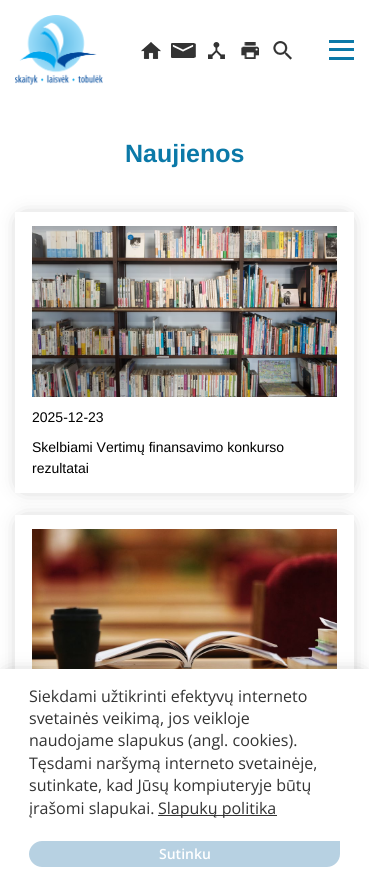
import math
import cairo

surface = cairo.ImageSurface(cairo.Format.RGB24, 369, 883)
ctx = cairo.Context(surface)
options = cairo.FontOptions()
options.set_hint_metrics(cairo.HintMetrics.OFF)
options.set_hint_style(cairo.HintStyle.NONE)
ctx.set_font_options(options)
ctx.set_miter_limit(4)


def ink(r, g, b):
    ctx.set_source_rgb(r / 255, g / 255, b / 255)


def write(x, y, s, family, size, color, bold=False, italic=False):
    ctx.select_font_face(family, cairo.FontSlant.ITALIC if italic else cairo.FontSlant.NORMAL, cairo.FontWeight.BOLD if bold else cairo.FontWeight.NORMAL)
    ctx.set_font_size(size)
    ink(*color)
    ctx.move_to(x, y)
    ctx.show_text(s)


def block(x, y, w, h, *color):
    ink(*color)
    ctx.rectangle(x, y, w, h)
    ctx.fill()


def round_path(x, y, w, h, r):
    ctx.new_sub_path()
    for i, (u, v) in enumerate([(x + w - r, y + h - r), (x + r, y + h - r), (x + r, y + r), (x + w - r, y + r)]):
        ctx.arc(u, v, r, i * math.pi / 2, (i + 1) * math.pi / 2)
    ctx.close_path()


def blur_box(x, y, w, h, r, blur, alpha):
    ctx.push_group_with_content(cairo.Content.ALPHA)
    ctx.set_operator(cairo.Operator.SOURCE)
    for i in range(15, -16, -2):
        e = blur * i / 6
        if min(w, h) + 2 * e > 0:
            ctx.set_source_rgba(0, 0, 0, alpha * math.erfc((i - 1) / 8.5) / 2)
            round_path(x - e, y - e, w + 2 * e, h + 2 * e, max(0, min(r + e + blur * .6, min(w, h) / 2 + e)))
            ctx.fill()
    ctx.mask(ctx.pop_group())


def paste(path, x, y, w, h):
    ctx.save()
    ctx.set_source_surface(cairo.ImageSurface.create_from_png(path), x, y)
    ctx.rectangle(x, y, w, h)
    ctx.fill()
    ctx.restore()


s1 = dict(family="Liberation Sans", size=25, color=(11, 121, 168), bold=True)
s2 = dict(family="Liberation Sans", size=14, color=(0, 0, 0))
s3 = dict(family="Open Sans", size=16, color=(51, 51, 51))
s4 = dict(family="Open Sans SemiBold", size=14, color=(255, 255, 255))

ink(255, 255, 255)
ctx.paint()
paste("pic1.png", 15, 15, 88, 70)
paste("pic2.png", 141, 42, 20, 17)
paste("pic3.png", 171, 43, 25, 15)
paste("pic4.png", 208, 42, 17, 17)
paste("pic5.png", 241, 42, 18, 17)
paste("pic6.png", 273, 41, 19, 19)
block(329, 40, 25, 3, 11, 121, 168)
block(329, 48, 25, 3, 11, 121, 168)
block(329, 57, 25, 3, 11, 121, 168)
write(125, 162, "Naujienos", **s1)
ctx.save()
ctx.set_fill_rule(cairo.FillRule.EVEN_ODD)
ctx.new_path()
ctx.move_to(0, 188)
ctx.line_to(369, 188)
ctx.line_to(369, 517)
ctx.line_to(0, 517)
ctx.close_path()
ctx.move_to(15, 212)
ctx.line_to(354, 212)
ctx.line_to(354, 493)
ctx.line_to(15, 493)
ctx.close_path()
ctx.clip()
ink(0, 0, 0)
blur_box(24, 221, 321, 263, 0, 10.5, 0.4)
ctx.restore()
paste("pic7.png", 32, 226, 305, 171)
write(32, 422, "2025-12-23", **s2)
write(32, 452, "Skelbiami Vertimų finansavimo konkurso", **s2)
write(32, 473, "rezultatai", **s2)
ctx.save()
ctx.set_fill_rule(cairo.FillRule.EVEN_ODD)
ctx.new_path()
ctx.move_to(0, 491)
ctx.line_to(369, 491)
ctx.line_to(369, 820)
ctx.line_to(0, 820)
ctx.close_path()
ctx.move_to(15, 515)
ctx.line_to(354, 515)
ctx.line_to(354, 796)
ctx.line_to(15, 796)
ctx.close_path()
ctx.clip()
ink(0, 0, 0)
blur_box(24, 524, 321, 263, 0, 10.5, 0.4)
ctx.restore()
paste("pic8.png", 32, 529, 305, 140)
ink(0, 0, 0)
blur_box(9, 678, 351, 196, 0, 10.5, 0.4)
block(0, 669, 369, 214, 255, 255, 255)
write(29, 702, "Siekdami užtikrinti efektyvų interneto", **s3)
write(29, 724, "svetainės veikimą, jos veikloje", **s3)
write(29, 746, "naudojame slapukus (angl. cookies).", **s3)
write(29, 769, "Tęsdami naršymą interneto svetainėje,", **s3)
write(29, 791, "sutinkate, kad Jūsų kompiuteryje būtų", **s3)
write(29, 814, "įrašomi slapukai.", **s3)
block(158, 815, 119, 1, 51, 51, 51)
write(158, 814, "Slapukų politika", **s3)
ink(183, 209, 226)
ctx.new_path()
ctx.move_to(42, 841)
ctx.line_to(340, 841)
ctx.line_to(340, 854)
ctx.curve_to(340, 861, 334, 867, 327, 867)
ctx.line_to(42, 867)
ctx.curve_to(35, 867, 29, 861, 29, 854)
ctx.curve_to(29, 847, 35, 841, 42, 841)
ctx.close_path()
ctx.fill()
write(159, 859, "Sutinku", **s4)
surface.write_to_png("screenshot.png")
